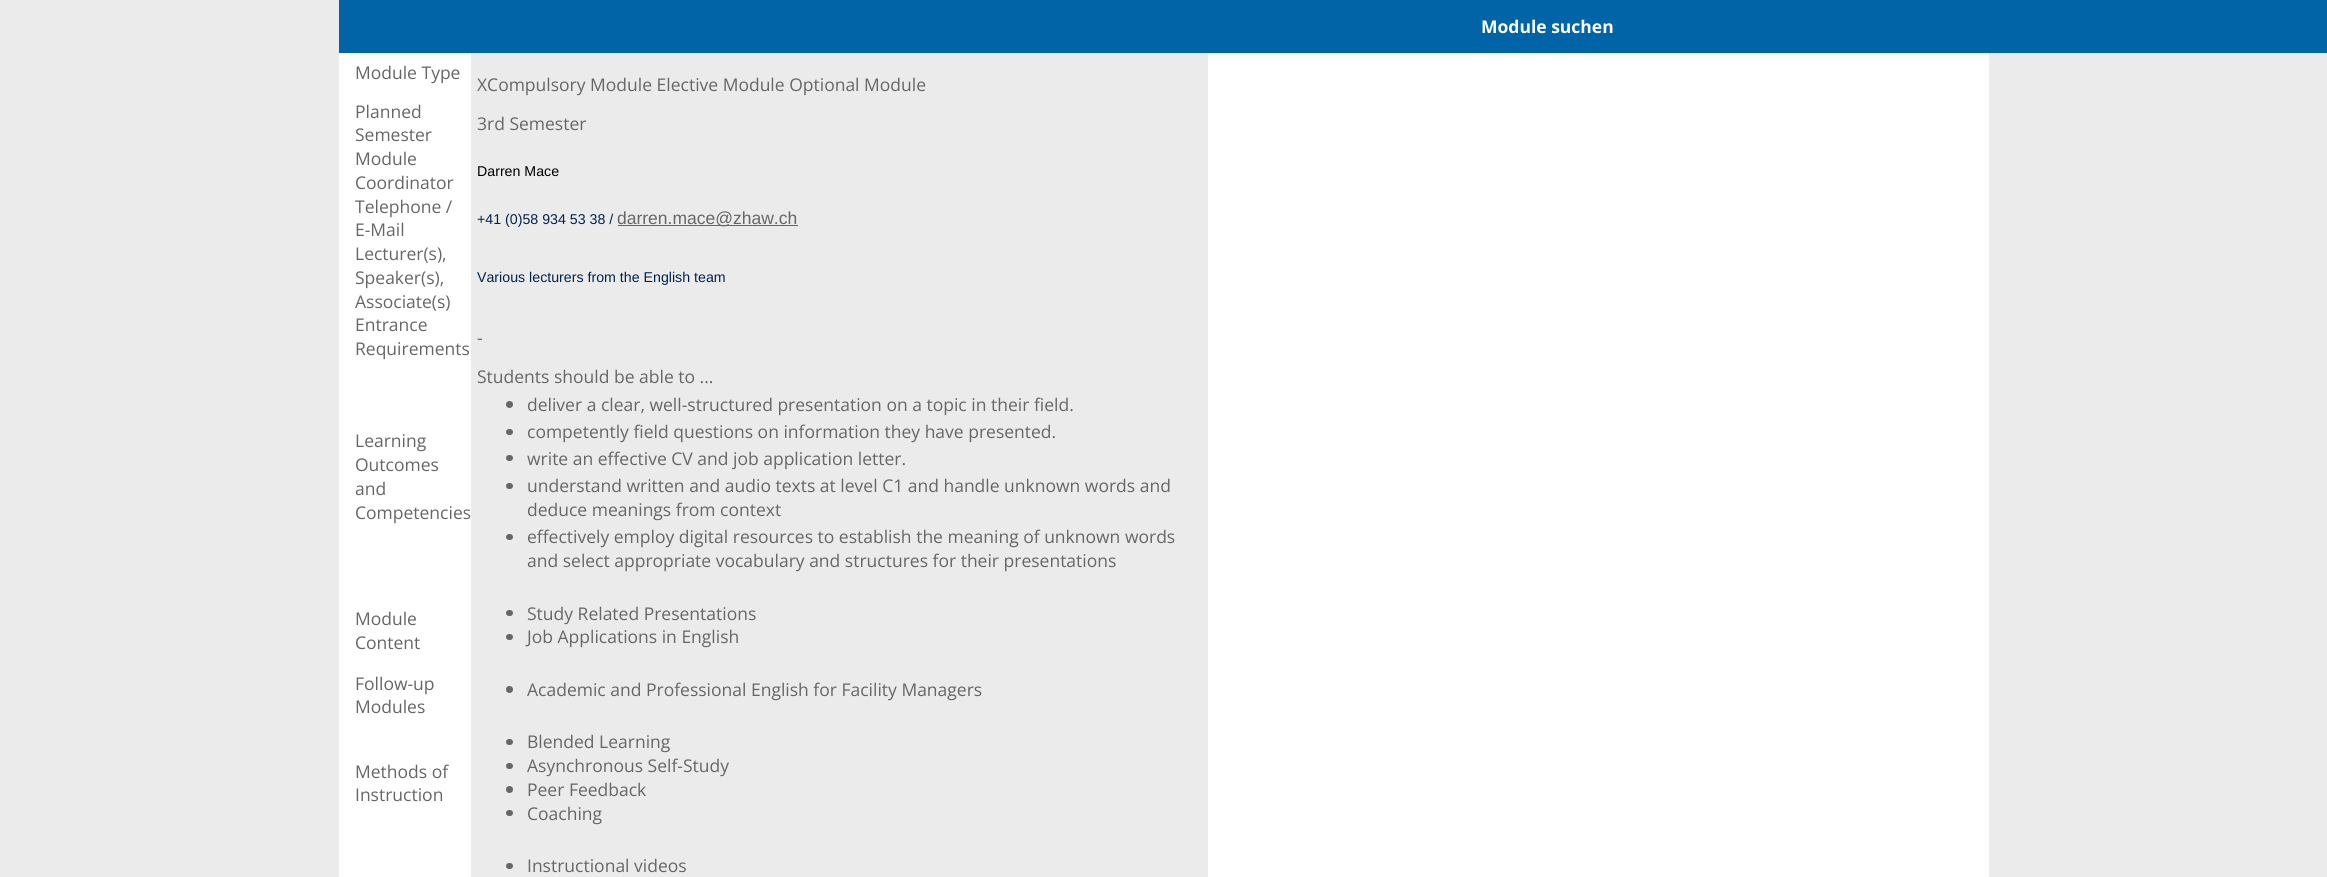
import math
import cairo

surface = cairo.ImageSurface(cairo.Format.RGB24, 2327, 877)
ctx = cairo.Context(surface)
options = cairo.FontOptions()
options.set_hint_metrics(cairo.HintMetrics.OFF)
options.set_hint_style(cairo.HintStyle.NONE)
ctx.set_font_options(options)
ctx.set_miter_limit(4)


def ink(r, g, b):
    ctx.set_source_rgb(r / 255, g / 255, b / 255)


def write(x, y, s, family, size, color, bold=False, italic=False):
    ctx.select_font_face(family, cairo.FontSlant.ITALIC if italic else cairo.FontSlant.NORMAL, cairo.FontWeight.BOLD if bold else cairo.FontWeight.NORMAL)
    ctx.set_font_size(size)
    ink(*color)
    ctx.move_to(x, y)
    ctx.show_text(s)


def block(x, y, w, h, *color):
    ink(*color)
    ctx.rectangle(x, y, w, h)
    ctx.fill()


def round_path(x, y, w, h, r):
    ctx.new_sub_path()
    for i, (u, v) in enumerate([(x + w - r, y + h - r), (x + r, y + h - r), (x + r, y + r), (x + w - r, y + r)]):
        ctx.arc(u, v, r, i * math.pi / 2, (i + 1) * math.pi / 2)
    ctx.close_path()


s1 = dict(family="Open Sans", size=17.5, color=(255, 255, 255), bold=True)
s2 = dict(family="Open Sans", size=17.5, color=(102, 102, 102))
s3 = dict(family="Liberation Sans", size=14.2, color=(0, 0, 0))
s4 = dict(family="Liberation Sans", size=14.2, color=(0, 35, 75))
s5 = dict(family="Liberation Sans", size=17.5, color=(102, 102, 102))

ink(235, 235, 235)
ctx.paint()
block(339, 53, 1650, 824, 255, 255, 255)
block(339, 0, 1988, 53, 0, 100, 166)
write(1481, 33, "Module suchen", **s1)
write(355, 79, "Module Type", **s2)
block(471, 53, 737, 824, 235, 235, 235)
write(477, 91, "XCompulsory Module Elective Module Optional Module", **s2)
write(355, 118, "Planned", **s2)
write(355, 141, "Semester", **s2)
write(477, 130, "3rd Semester", **s2)
write(355, 165, "Module", **s2)
write(355, 189, "Coordinator", **s2)
write(477, 176, "Darren Mace", **s3)
write(355, 213, "Telephone /", **s2)
write(355, 236, "E-Mail", **s2)
write(477, 224, "+41 (0)58 934 53 38 /", **s4)
block(618, 225, 180, 1, 102, 102, 102)
write(617, 224, "darren.mace@zhaw.ch", **s5)
write(355, 260, "Lecturer(s),", **s2)
write(355, 284, "Speaker(s),", **s2)
write(355, 308, "Associate(s)", **s2)
write(477, 282, "Various lecturers from the English team", **s4)
write(355, 331, "Entrance", **s2)
write(355, 355, "Requirements", **s2)
write(477, 344, "-", **s2)
write(355, 447, "Learning", **s2)
write(355, 471, "Outcomes", **s2)
write(355, 495, "and", **s2)
write(355, 519, "Competencies", **s2)
write(477, 383, "Students should be able to ...", **s2)
ctx.new_path()
ctx.arc(509.5, 404.5, 3.5, 0, 2 * math.pi)
ctx.fill()
write(527, 411, "deliver a clear, well-structured presentation on a topic in their field.", **s2)
round_path(506, 429, 7, 6, 3)
ctx.fill()
write(527, 438, "competently field questions on information they have presented.", **s2)
round_path(506, 455, 7, 6, 3)
ctx.fill()
write(527, 465, "write an effective CV and job application letter.", **s2)
round_path(506, 483, 7, 6, 3)
ctx.fill()
write(527, 492, "understand written and audio texts at level C1 and handle unknown words and", **s2)
write(527, 516, "deduce meanings from context", **s2)
round_path(506, 534, 7, 6, 3)
ctx.fill()
write(527, 543, "effectively employ digital resources to establish the meaning of unknown words", **s2)
write(527, 567, "and select appropriate vocabulary and structures for their presentations", **s2)
write(355, 625, "Module", **s2)
write(355, 649, "Content", **s2)
round_path(506, 610, 7, 6, 3)
ctx.fill()
write(527, 620, "Study Related Presentations", **s2)
round_path(506, 634, 7, 6, 3)
ctx.fill()
write(527, 643, "Job Applications in English", **s2)
write(355, 690, "Follow-up", **s2)
write(355, 713, "Modules", **s2)
ctx.new_path()
ctx.arc(509.5, 689.5, 3.5, 0, 2 * math.pi)
ctx.fill()
write(527, 696, "Academic and Professional English for Facility Managers", **s2)
write(355, 778, "Methods of", **s2)
write(355, 801, "Instruction", **s2)
round_path(506, 739, 7, 6, 3)
ctx.fill()
write(527, 748, "Blended Learning", **s2)
round_path(506, 763, 7, 6, 3)
ctx.fill()
write(527, 772, "Asynchronous Self-Study", **s2)
ctx.new_path()
ctx.arc(509.5, 789.5, 3.5, 0, 2 * math.pi)
ctx.fill()
write(527, 796, "Peer Feedback", **s2)
round_path(506, 810, 7, 6, 3)
ctx.fill()
write(527, 820, "Coaching", **s2)
round_path(506, 863, 7, 6, 3)
ctx.fill()
write(527, 872, "Instructional videos", **s2)
surface.write_to_png("screenshot.png")
